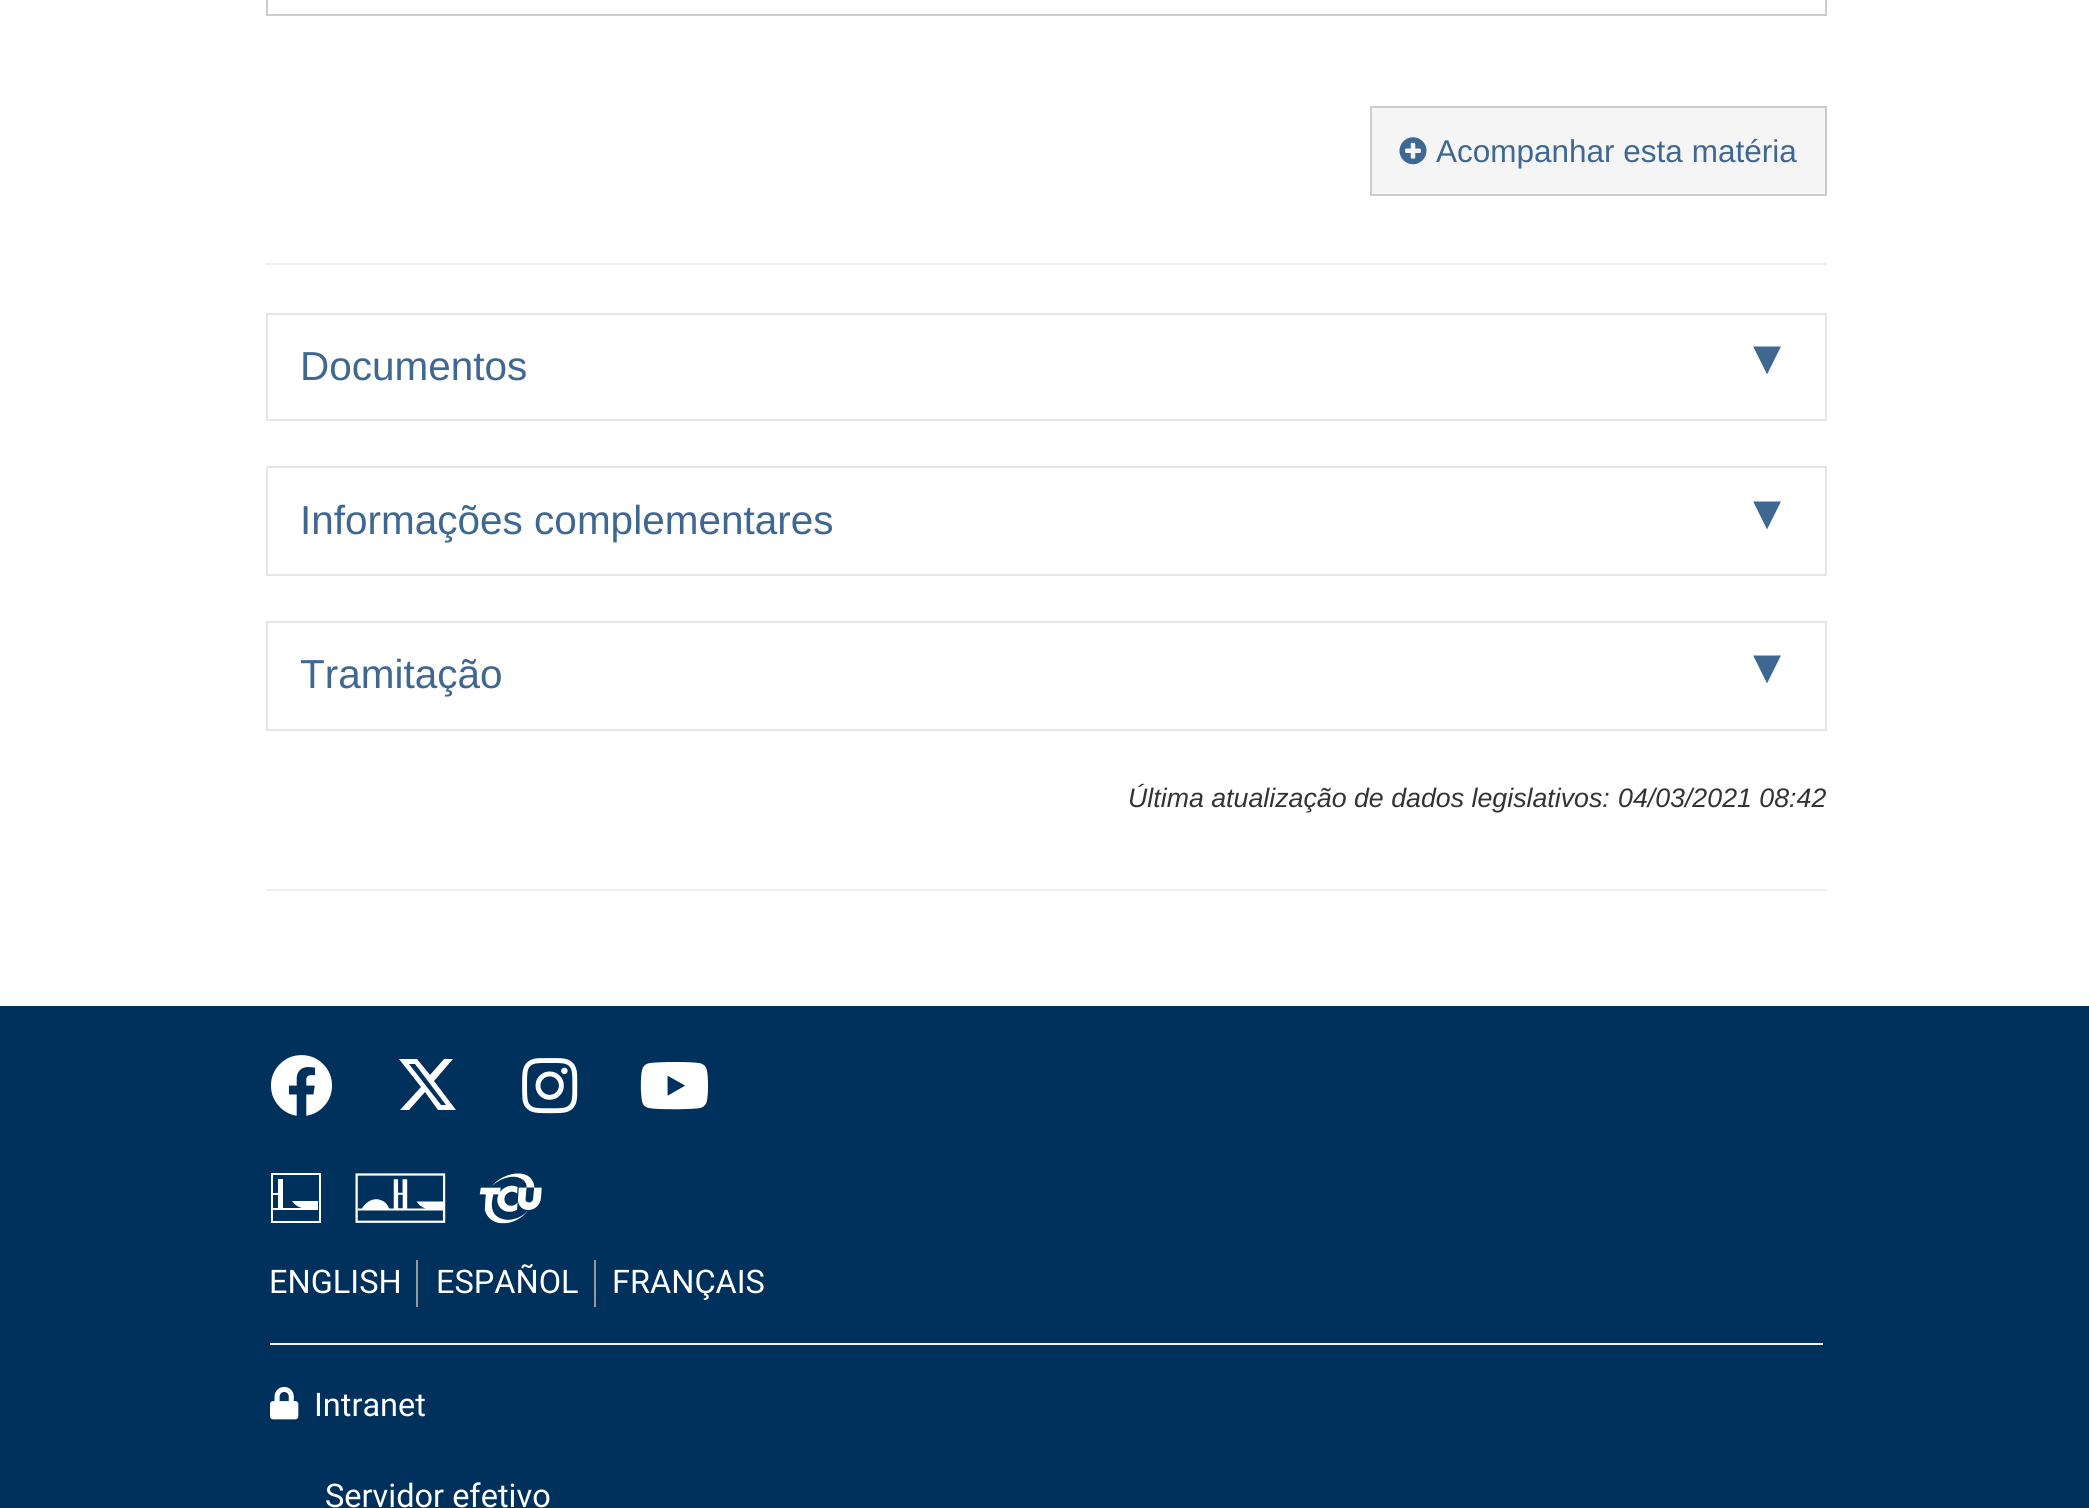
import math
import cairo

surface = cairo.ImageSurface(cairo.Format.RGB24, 2089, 1508)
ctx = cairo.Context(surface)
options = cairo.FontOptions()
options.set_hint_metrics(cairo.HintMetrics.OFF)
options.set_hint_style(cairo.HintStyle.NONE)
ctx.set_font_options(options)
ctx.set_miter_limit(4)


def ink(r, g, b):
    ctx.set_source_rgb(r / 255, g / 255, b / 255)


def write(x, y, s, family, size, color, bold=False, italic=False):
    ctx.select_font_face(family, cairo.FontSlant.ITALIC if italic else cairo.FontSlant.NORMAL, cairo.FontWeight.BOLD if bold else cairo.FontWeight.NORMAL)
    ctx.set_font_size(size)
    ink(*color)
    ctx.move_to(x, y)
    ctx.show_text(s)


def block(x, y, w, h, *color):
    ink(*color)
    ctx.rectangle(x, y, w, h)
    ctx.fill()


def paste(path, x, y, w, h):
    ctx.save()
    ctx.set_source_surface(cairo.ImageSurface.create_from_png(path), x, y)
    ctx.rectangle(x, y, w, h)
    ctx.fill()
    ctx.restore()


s1 = dict(family="Liberation Sans", size=31.5, color=(62, 104, 146))
s2 = dict(family="Liberation Sans", size=40.5, color=(62, 104, 146))
s3 = dict(family="DejaVu Sans", size=56, color=(62, 104, 146))
s4 = dict(family="Liberation Sans", size=26.75, color=(51, 51, 51), italic=True)
s5 = dict(family="Roboto", size=32.5, color=(255, 255, 255))

ink(255, 255, 255)
ctx.paint()
ctx.rectangle(267, -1, 1559, 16)
ink(204, 204, 204)
ctx.stroke()
ink(245, 245, 245)
ctx.rectangle(1371, 107, 455, 88)
ctx.fill_preserve()
ink(204, 204, 204)
ctx.stroke()
paste("pic1.png", 1399, 137, 28, 28)
write(1436, 162, "Acompanhar esta matéria", **s1)
block(266, 263, 1561, 2, 238, 238, 238)
ctx.rectangle(267, 314, 1559, 106)
ink(229, 229, 229)
ctx.stroke()
write(300, 380, "Documentos", **s2)
write(1753, 375, "▾", **s3)
ctx.rectangle(267, 467, 1559, 108)
ink(229, 229, 229)
ctx.stroke()
write(300, 534, "Informações complementares", **s2)
write(1753, 530, "▾", **s3)
ctx.rectangle(267, 622, 1559, 108)
ink(229, 229, 229)
ctx.stroke()
write(300, 688, "Tramitação", **s2)
write(1753, 684, "▾", **s3)
write(1128, 807, "Última atualização de dados legislativos:", **s4)
write(1618, 807, "04/03/2021 08:42", **s4)
block(266, 889, 1561, 2, 238, 238, 238)
block(0, 1006, 2089, 502, 0, 48, 92)
paste("pic2.png", 271, 1055, 61, 61)
ink(255, 255, 255)
ctx.new_path()
ctx.move_to(444, 1059)
ctx.line_to(453, 1059)
ctx.line_to(434, 1081)
ctx.line_to(456, 1110)
ctx.line_to(438, 1110)
ctx.line_to(425, 1092)
ctx.line_to(409, 1110)
ctx.line_to(400, 1110)
ctx.line_to(421, 1087)
ctx.line_to(399, 1059)
ctx.line_to(417, 1059)
ctx.line_to(430, 1075)
ctx.close_path()
ctx.move_to(441, 1105)
ctx.line_to(446, 1105)
ctx.line_to(415, 1064)
ctx.line_to(409, 1064)
ctx.close_path()
ctx.fill()
paste("pic3.png", 522, 1058, 56, 56)
paste("pic4.png", 640, 1062, 69, 48)
ctx.rectangle(272, 1174, 48, 48)
ctx.stroke()
block(273, 1193, 5, 2, 255, 255, 255)
ctx.new_path()
ctx.move_to(278, 1210)
ctx.line_to(278, 1179)
ctx.line_to(283, 1179)
ctx.line_to(283, 1208)
ctx.line_to(302, 1208)
ctx.curve_to(302, 1208, 296, 1207, 292, 1201)
ctx.line_to(318, 1201)
ctx.line_to(318, 1210)
ctx.close_path()
ctx.fill()
block(273, 1208, 5, 2, 255, 255, 255)
paste("pic5.png", 355, 1173, 91, 50)
paste("pic6.png", 479, 1173, 63, 51)
write(269, 1293, "ENGLISH", **s5)
block(416, 1260, 2, 47, 153, 153, 153)
write(436, 1293, "ESPAÑOL", **s5)
block(594, 1260, 2, 47, 153, 153, 153)
write(612, 1293, "FRANÇAIS", **s5)
block(270, 1343, 1553, 2, 241, 241, 241)
paste("pic7.png", 270, 1386, 29, 34)
write(314, 1416, "Intranet", **s5)
write(325, 1507, "Servidor efetivo", **s5)
surface.write_to_png("screenshot.png")
